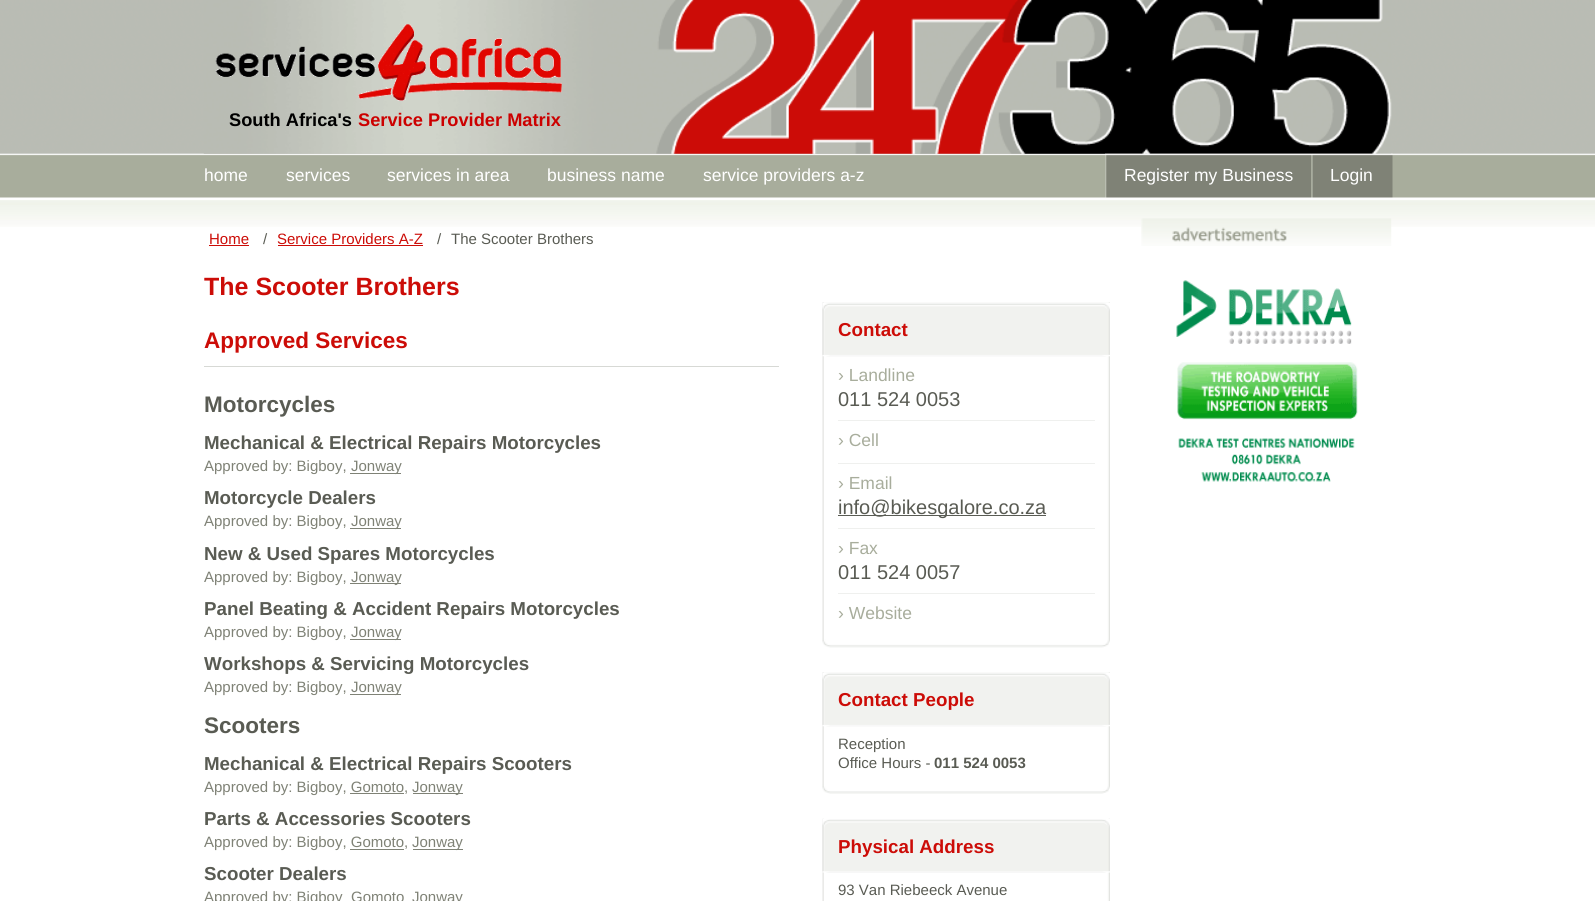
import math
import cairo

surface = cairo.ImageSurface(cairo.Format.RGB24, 1595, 901)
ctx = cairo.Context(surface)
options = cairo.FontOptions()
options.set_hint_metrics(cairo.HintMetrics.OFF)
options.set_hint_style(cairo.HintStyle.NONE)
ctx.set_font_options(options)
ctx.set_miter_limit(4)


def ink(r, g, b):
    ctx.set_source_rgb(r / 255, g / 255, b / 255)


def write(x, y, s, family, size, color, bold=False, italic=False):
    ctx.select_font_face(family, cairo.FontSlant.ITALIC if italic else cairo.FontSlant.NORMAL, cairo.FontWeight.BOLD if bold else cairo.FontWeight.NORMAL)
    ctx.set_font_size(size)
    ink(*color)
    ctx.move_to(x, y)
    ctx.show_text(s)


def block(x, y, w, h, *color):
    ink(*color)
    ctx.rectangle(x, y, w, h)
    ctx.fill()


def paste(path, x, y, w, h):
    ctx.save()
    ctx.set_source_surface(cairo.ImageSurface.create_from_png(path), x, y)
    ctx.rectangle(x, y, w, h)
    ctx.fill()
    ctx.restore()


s1 = dict(family="Liberation Sans", size=18.25, color=(0, 0, 0), bold=True)
s2 = dict(family="Liberation Sans", size=18.25, color=(204, 0, 0), bold=True)
s3 = dict(family="Liberation Sans", size=17.5, color=(255, 255, 255))
s4 = dict(family="Liberation Sans", size=15, color=(204, 12, 7))
s5 = dict(family="Liberation Sans", size=15, color=(89, 91, 83))
s6 = dict(family="Liberation Sans", size=25, color=(204, 12, 7), bold=True)
s7 = dict(family="Liberation Sans", size=22.5, color=(204, 12, 7), bold=True)
s8 = dict(family="Liberation Sans", size=22.5, color=(89, 91, 83), bold=True)
s9 = dict(family="Liberation Sans", size=18.75, color=(89, 91, 83), bold=True)
s10 = dict(family="Liberation Sans", size=15, color=(127, 130, 118))
s11 = dict(family="Liberation Sans", size=18.75, color=(204, 12, 7), bold=True)
s12 = dict(family="Liberation Sans", size=17.5, color=(168, 173, 156))
s13 = dict(family="Liberation Sans", size=20, color=(89, 91, 83))
s14 = dict(family="Liberation Sans", size=15, color=(89, 91, 83), bold=True)

ink(255, 255, 255)
ctx.paint()
paste("pic1.png", 0, 0, 1595, 198)
paste("pic2.png", 203, 0, 1189, 154)
paste("pic3.png", 215, 24, 347, 77)
write(229, 126, "South Africa's", **s1)
write(358, 126, "Service Provider Matrix", **s2)
write(204, 181, "home", **s3)
write(286, 181, "services", **s3)
write(387, 181, "services in area", **s3)
write(547, 181, "business name", **s3)
write(703, 181, "service providers a-z", **s3)
paste("pic5.png", 1311, 153, 82, 45)
paste("pic4.png", 1105, 153, 207, 45)
write(1124, 181, "Register my Business", **s3)
write(1330, 181, "Login", **s3)
paste("pic6.png", 0, 200, 1595, 27)
write(209, 244, "Home", **s4)
block(209, 245, 40, 1, 204, 12, 7)
write(263, 244, "/", **s5)
write(277, 244, "Service Providers A-Z", **s4)
block(278, 245, 145, 1, 204, 12, 7)
write(437, 244, "/", **s5)
write(451, 244, "The Scooter Brothers", **s5)
write(204, 295, "The Scooter Brothers", **s6)
block(204, 366, 575, 1, 215, 217, 213)
write(204, 348, "Approved Services", **s7)
write(204, 412, "Motorcycles", **s8)
write(204, 449, "Mechanical & Electrical Repairs Motorcycles", **s9)
write(204, 471, "Approved by: Bigboy,", **s10)
block(350, 473, 51, 1, 127, 130, 118)
write(351, 471, "Jonway", **s10)
write(204, 504, "Motorcycle Dealers", **s9)
write(204, 526, "Approved by: Bigboy,", **s10)
block(350, 528, 51, 1, 127, 130, 118)
write(351, 526, "Jonway", **s10)
write(204, 560, "New & Used Spares Motorcycles", **s9)
write(204, 582, "Approved by: Bigboy,", **s10)
block(350, 583, 51, 1, 127, 130, 118)
write(351, 582, "Jonway", **s10)
write(204, 615, "Panel Beating & Accident Repairs Motorcycles", **s9)
write(204, 637, "Approved by: Bigboy,", **s10)
block(350, 639, 51, 1, 127, 130, 118)
write(351, 637, "Jonway", **s10)
write(204, 670, "Workshops & Servicing Motorcycles", **s9)
write(204, 692, "Approved by: Bigboy,", **s10)
block(350, 694, 51, 1, 127, 130, 118)
write(351, 692, "Jonway", **s10)
write(204, 733, "Scooters", **s8)
write(204, 770, "Mechanical & Electrical Repairs Scooters", **s9)
write(204, 792, "Approved by: Bigboy, Gomoto,", **s10)
block(413, 793, 50, 1, 127, 130, 118)
write(412, 792, "Jonway", **s10)
block(350, 793, 54, 1, 127, 130, 118)
write(204, 825, "Parts & Accessories Scooters", **s9)
write(204, 847, "Approved by: Bigboy, Gomoto,", **s10)
block(413, 849, 50, 1, 127, 130, 118)
write(412, 847, "Jonway", **s10)
block(350, 849, 54, 1, 127, 130, 118)
write(204, 880, "Scooter Dealers", **s9)
write(204, 902, "Approved by: Bigboy", **s10)
write(351, 902, "Gomoto", **s10)
write(412, 902, "Jonway", **s10)
paste("pic7.png", 822, 302, 288, 346)
paste("pic8.png", 822, 302, 288, 55)
write(838, 336, "Contact", **s11)
block(838, 420, 257, 1, 239, 240, 238)
write(838, 381, "› Landline", **s12)
write(838, 406, "011 524 0053", **s13)
block(838, 463, 257, 1, 239, 240, 238)
write(838, 446, "› Cell", **s12)
block(838, 528, 257, 1, 239, 240, 238)
write(838, 489, "› Email", **s12)
block(838, 515, 208, 1, 89, 91, 83)
write(838, 514, "info@bikesgalore.co.za", **s13)
block(838, 593, 257, 1, 239, 240, 238)
write(838, 554, "› Fax", **s12)
write(838, 579, "011 524 0057", **s13)
write(838, 619, "› Website", **s12)
paste("pic9.png", 822, 672, 288, 122)
paste("pic10.png", 822, 672, 288, 55)
write(838, 706, "Contact People", **s11)
write(838, 749, "Reception", **s5)
write(838, 768, "Office Hours -", **s5)
write(934, 768, "011 524 0053", **s14)
paste("pic11.png", 822, 818, 288, 83)
paste("pic12.png", 822, 819, 288, 54)
write(838, 853, "Physical Address", **s11)
write(838, 895, "93 Van Riebeeck Avenue", **s5)
paste("pic13.png", 1141, 218, 251, 28)
paste("pic14.png", 1176, 280, 182, 202)
surface.write_to_png("screenshot.png")
